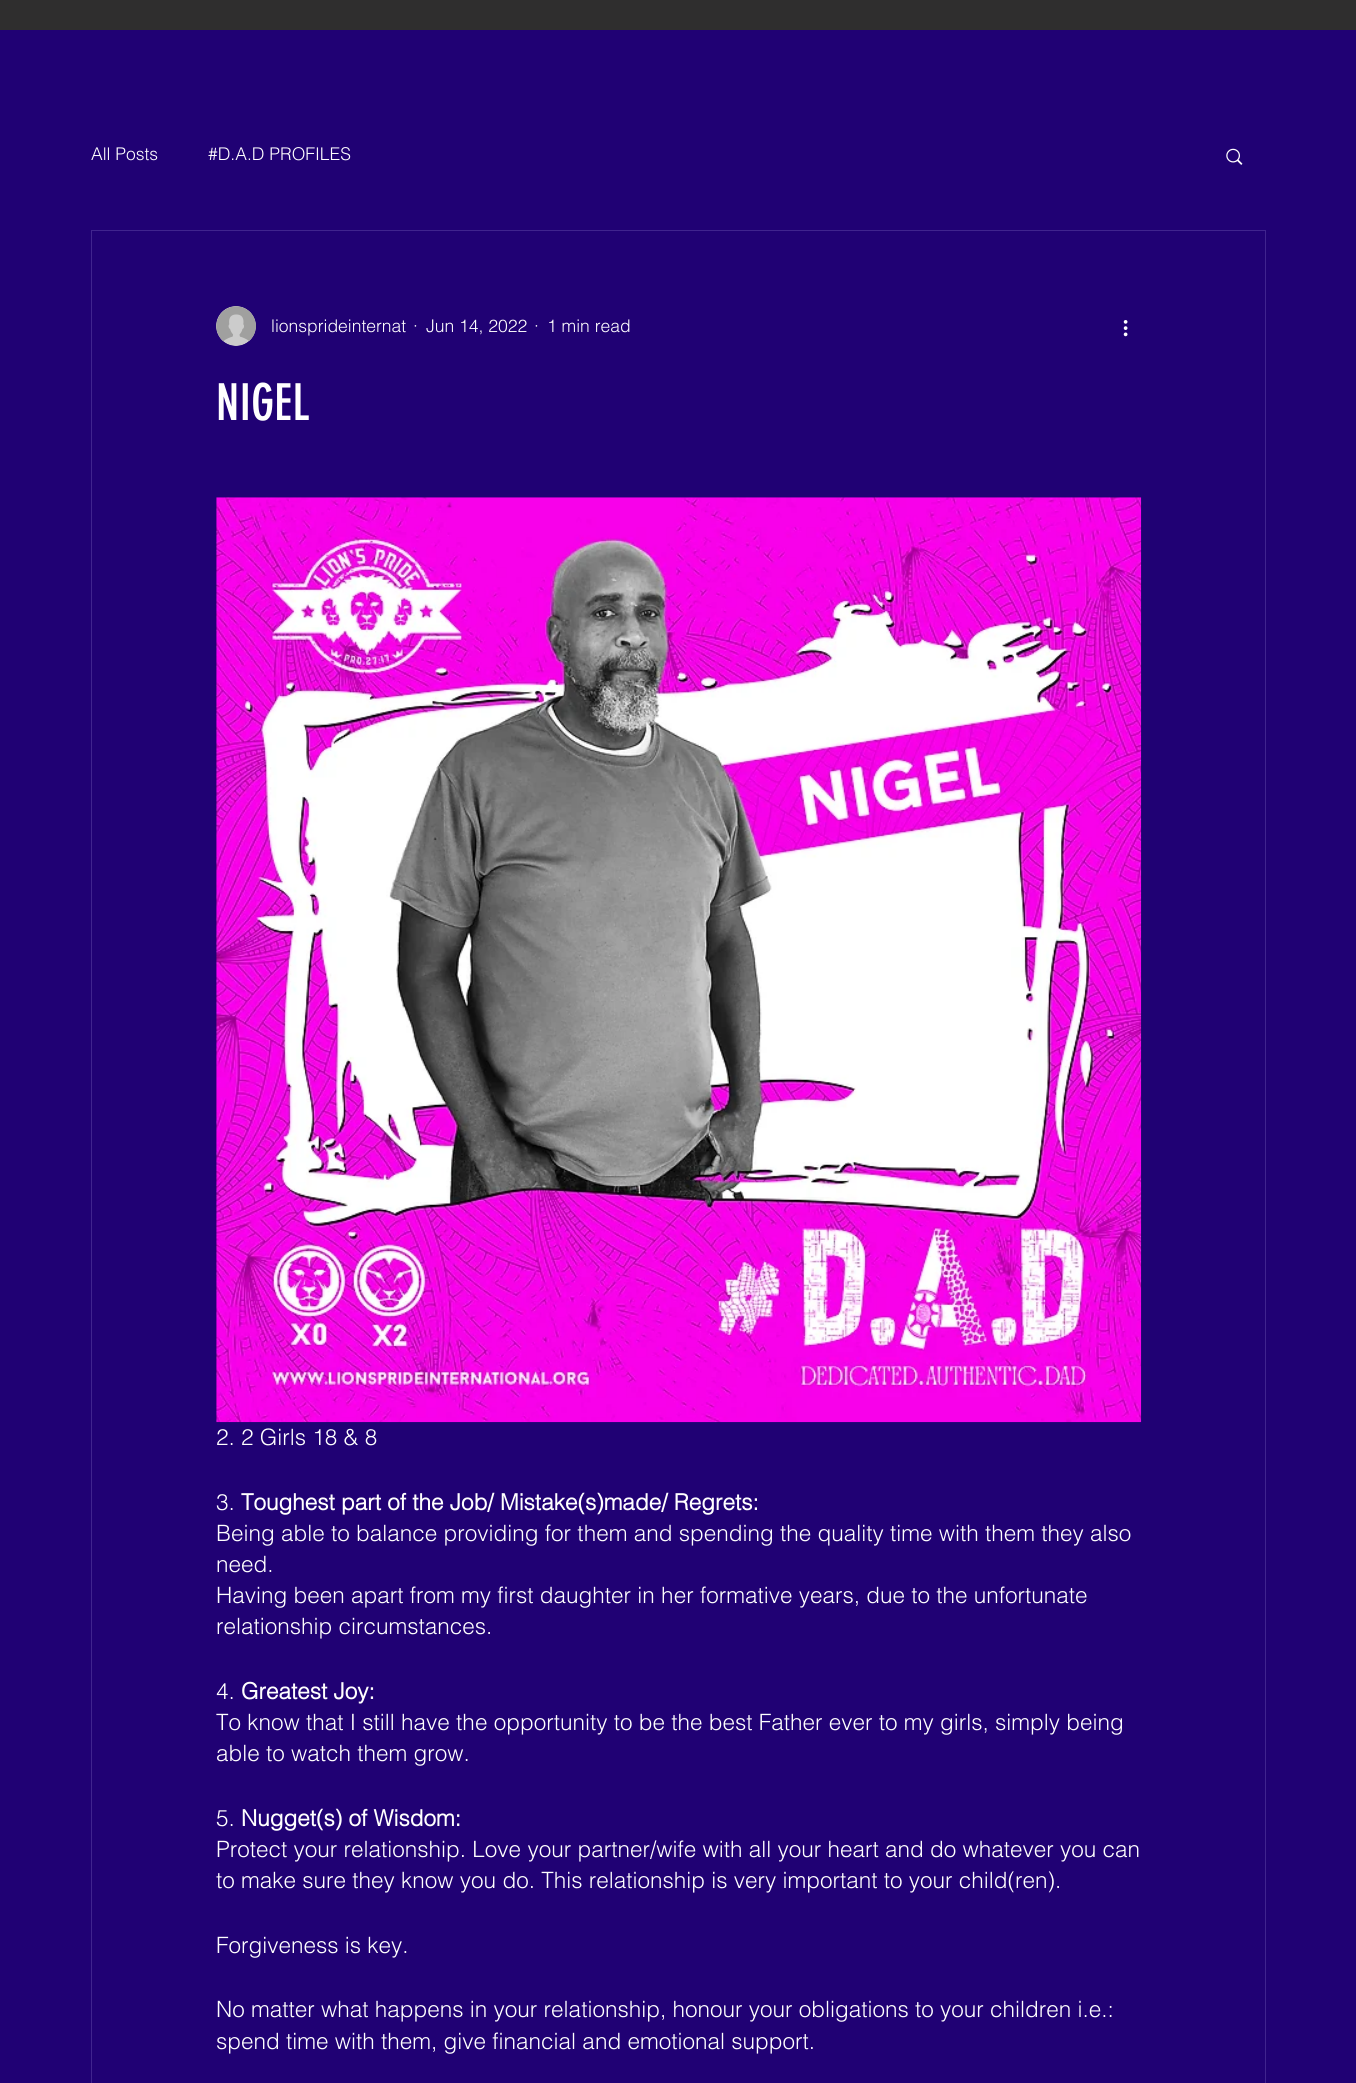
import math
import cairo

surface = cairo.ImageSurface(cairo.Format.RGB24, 1356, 2083)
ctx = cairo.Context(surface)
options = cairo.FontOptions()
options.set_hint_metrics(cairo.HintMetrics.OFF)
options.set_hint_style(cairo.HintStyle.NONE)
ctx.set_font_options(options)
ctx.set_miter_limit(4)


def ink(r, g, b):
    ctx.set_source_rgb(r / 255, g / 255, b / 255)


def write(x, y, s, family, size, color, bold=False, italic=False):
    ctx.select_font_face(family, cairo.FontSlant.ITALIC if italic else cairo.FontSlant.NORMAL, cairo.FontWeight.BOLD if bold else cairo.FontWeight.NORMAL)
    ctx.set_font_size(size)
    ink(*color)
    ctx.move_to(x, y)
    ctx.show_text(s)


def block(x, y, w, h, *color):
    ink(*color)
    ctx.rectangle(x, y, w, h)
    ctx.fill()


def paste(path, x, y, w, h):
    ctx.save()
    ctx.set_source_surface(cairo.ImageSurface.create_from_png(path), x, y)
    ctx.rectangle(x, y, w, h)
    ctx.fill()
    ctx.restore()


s1 = dict(family="helvetica Light", size=17.5, color=(255, 255, 255))
s2 = dict(family="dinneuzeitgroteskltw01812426", size=50, color=(255, 255, 255))
s3 = dict(family="helvetica Light", size=22.5, color=(255, 255, 255))
s4 = dict(family="helvetica", size=22.5, color=(255, 255, 255), bold=True)

ink(32, 1, 116)
ctx.paint()
block(0, 0, 1356, 30, 47, 46, 46)
write(91, 160, "All Posts", **s1)
write(208, 160, "#D.A.D PROFILES", **s1)
paste("pic1.png", 1226, 148, 17, 17)
ctx.rectangle(91.5, 230.5, 1174, 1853)
ink(64, 36, 142)
ctx.set_line_width(1)
ctx.stroke()
paste("pic2.png", 216, 306, 40, 40)
write(271, 332, "lionsprideinternat", **s1)
write(413, 332, "·", **s1)
write(426, 332, "Jun 14, 2022", **s1)
write(534, 332, "·", **s1)
write(547, 332, "1 min read", **s1)
paste("pic3.png", 1123, 320, 5, 17)
write(216, 420, "NIGEL", **s2)
paste("pic4.png", 216, 497, 926, 926)
write(216, 1445, "2. 2 Girls 18 & 8", **s3)
write(216, 1510, "3.", **s3)
write(241, 1510, "Toughest part of the Job/ Mistake(s)made/ Regrets:", **s4)
write(216, 1541, "Being able to balance providing for them and spending the quality time with them they also", **s3)
write(216, 1572, "need.", **s3)
write(216, 1603, "Having been apart from my first daughter in her formative years, due to the unfortunate", **s3)
write(216, 1634, "relationship circumstances.", **s3)
write(216, 1699, "4.", **s3)
write(241, 1699, "Greatest Joy:", **s4)
write(216, 1730, "To know that I still have the opportunity to be the best Father ever to my girls, simply being", **s3)
write(216, 1761, "able to watch them grow.", **s3)
write(216, 1826, "5.", **s3)
write(241, 1826, "Nugget(s) of Wisdom:", **s4)
write(216, 1857, "Protect your relationship. Love your partner/wife with all your heart and do whatever you can", **s3)
write(216, 1888, "to make sure they know you do. This relationship is very important to your child(ren).", **s3)
write(216, 1953, "Forgiveness is key.", **s3)
write(216, 2017, "No matter what happens in your relationship, honour your obligations to your children i.e.:", **s3)
write(216, 2049, "spend time with them, give financial and emotional support.", **s3)
surface.write_to_png("screenshot.png")
